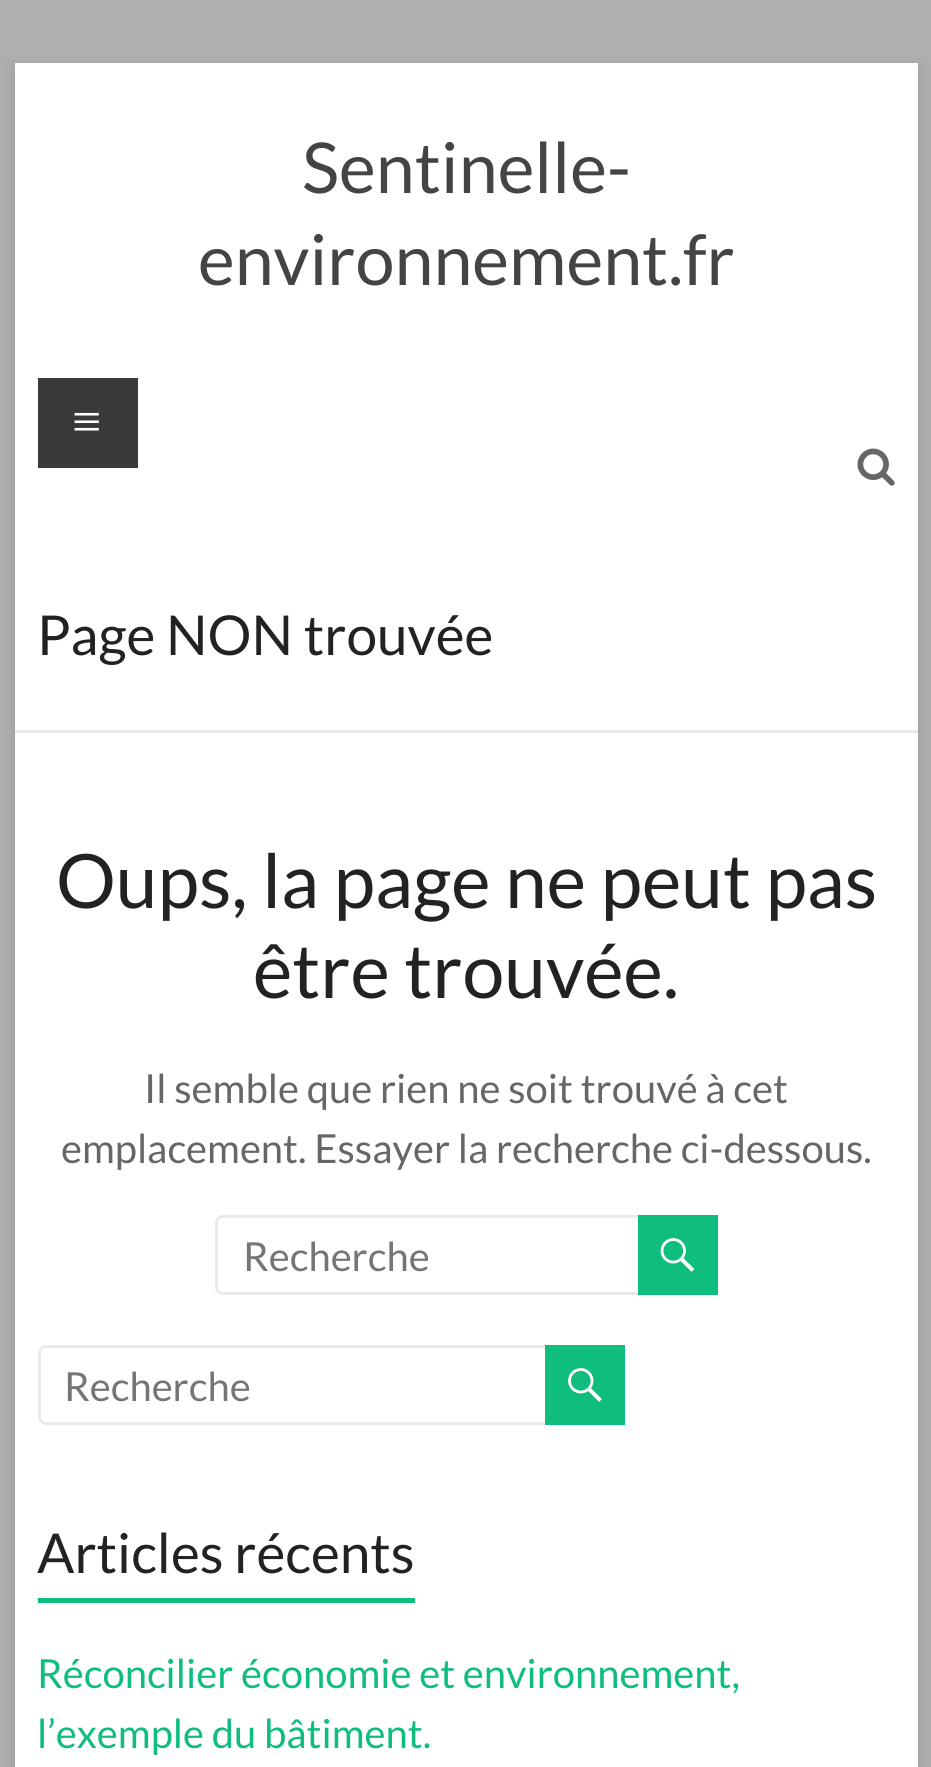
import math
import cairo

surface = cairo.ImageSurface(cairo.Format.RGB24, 931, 1767)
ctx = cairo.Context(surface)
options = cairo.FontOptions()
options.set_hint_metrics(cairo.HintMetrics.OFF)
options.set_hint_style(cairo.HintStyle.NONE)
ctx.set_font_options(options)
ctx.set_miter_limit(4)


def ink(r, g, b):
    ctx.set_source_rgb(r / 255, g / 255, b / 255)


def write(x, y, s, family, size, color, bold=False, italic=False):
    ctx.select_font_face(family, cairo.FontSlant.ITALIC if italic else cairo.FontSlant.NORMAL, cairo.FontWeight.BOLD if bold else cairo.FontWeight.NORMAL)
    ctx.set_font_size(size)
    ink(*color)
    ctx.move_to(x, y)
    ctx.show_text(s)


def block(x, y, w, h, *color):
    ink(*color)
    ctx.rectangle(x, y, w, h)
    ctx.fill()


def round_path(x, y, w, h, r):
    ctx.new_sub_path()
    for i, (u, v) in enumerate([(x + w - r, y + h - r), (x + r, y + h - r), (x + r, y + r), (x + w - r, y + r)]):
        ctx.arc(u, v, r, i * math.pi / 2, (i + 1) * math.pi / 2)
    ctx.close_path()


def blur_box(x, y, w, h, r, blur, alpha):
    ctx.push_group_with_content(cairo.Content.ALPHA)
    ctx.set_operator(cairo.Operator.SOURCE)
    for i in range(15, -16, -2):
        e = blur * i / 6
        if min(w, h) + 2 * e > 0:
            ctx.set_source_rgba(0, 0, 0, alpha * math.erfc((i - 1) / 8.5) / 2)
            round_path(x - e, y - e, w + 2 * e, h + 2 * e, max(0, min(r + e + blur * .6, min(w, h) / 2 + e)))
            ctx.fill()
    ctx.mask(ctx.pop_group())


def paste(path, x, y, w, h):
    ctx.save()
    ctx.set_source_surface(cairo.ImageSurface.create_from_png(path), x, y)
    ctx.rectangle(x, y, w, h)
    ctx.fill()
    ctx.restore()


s1 = dict(family="Lato", size=70, color=(68, 68, 68))
s2 = dict(family="Liberation Serif", size=52, color=(255, 255, 255))
s3 = dict(family="Lato", size=55, color=(34, 34, 34))
s4 = dict(family="Lato", size=75, color=(34, 34, 34))
s5 = dict(family="Lato", size=40, color=(102, 102, 102))
s6 = dict(family="Lato", size=40, color=(117, 117, 117))
s7 = dict(family="Lato", size=40, color=(15, 190, 124))

ink(175, 175, 175)
ctx.paint()
ink(100, 100, 100)
blur_box(15, 68, 903, 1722, 0, 7.5, 0.3)
block(15, 63, 903, 1704, 255, 255, 255)
write(302, 193, "Sentinelle-", **s1)
write(198, 285, "environnement.fr", **s1)
block(38, 378, 100, 90, 58, 58, 58)
write(72, 439, "≡", **s2)
paste("pic1.png", 857, 448, 38, 38)
block(15, 730, 903, 3, 234, 234, 234)
write(37, 655, "Page NON trouvée", **s3)
write(56, 908, "Oups, la page ne peut pas", **s4)
write(253, 998, "être trouvée.", **s4)
write(144, 1103, "Il semble que rien ne soit trouvé à cet", **s5)
write(61, 1163, "emplacement. Essayer la recherche ci-dessous.", **s5)
round_path(216.5, 1216.5, 427, 77, 6.5)
ink(234, 234, 234)
ctx.set_line_width(3)
ctx.stroke()
write(243, 1271, "Recherche", **s6)
block(638, 1215, 80, 80, 15, 190, 124)
paste("pic2.png", 660, 1238, 35, 34)
round_path(39.5, 1346.5, 512, 77, 6.5)
ink(234, 234, 234)
ctx.stroke()
write(64, 1401, "Recherche", **s6)
block(545, 1345, 80, 80, 15, 190, 124)
paste("pic3.png", 568, 1368, 34, 34)
write(37, 1573, "Articles récents", **s3)
block(38, 1598, 377, 5, 15, 190, 124)
write(37, 1688, "Réconcilier économie et environnement,", **s7)
write(37, 1748, "l’exemple du bâtiment.", **s7)
surface.write_to_png("screenshot.png")
